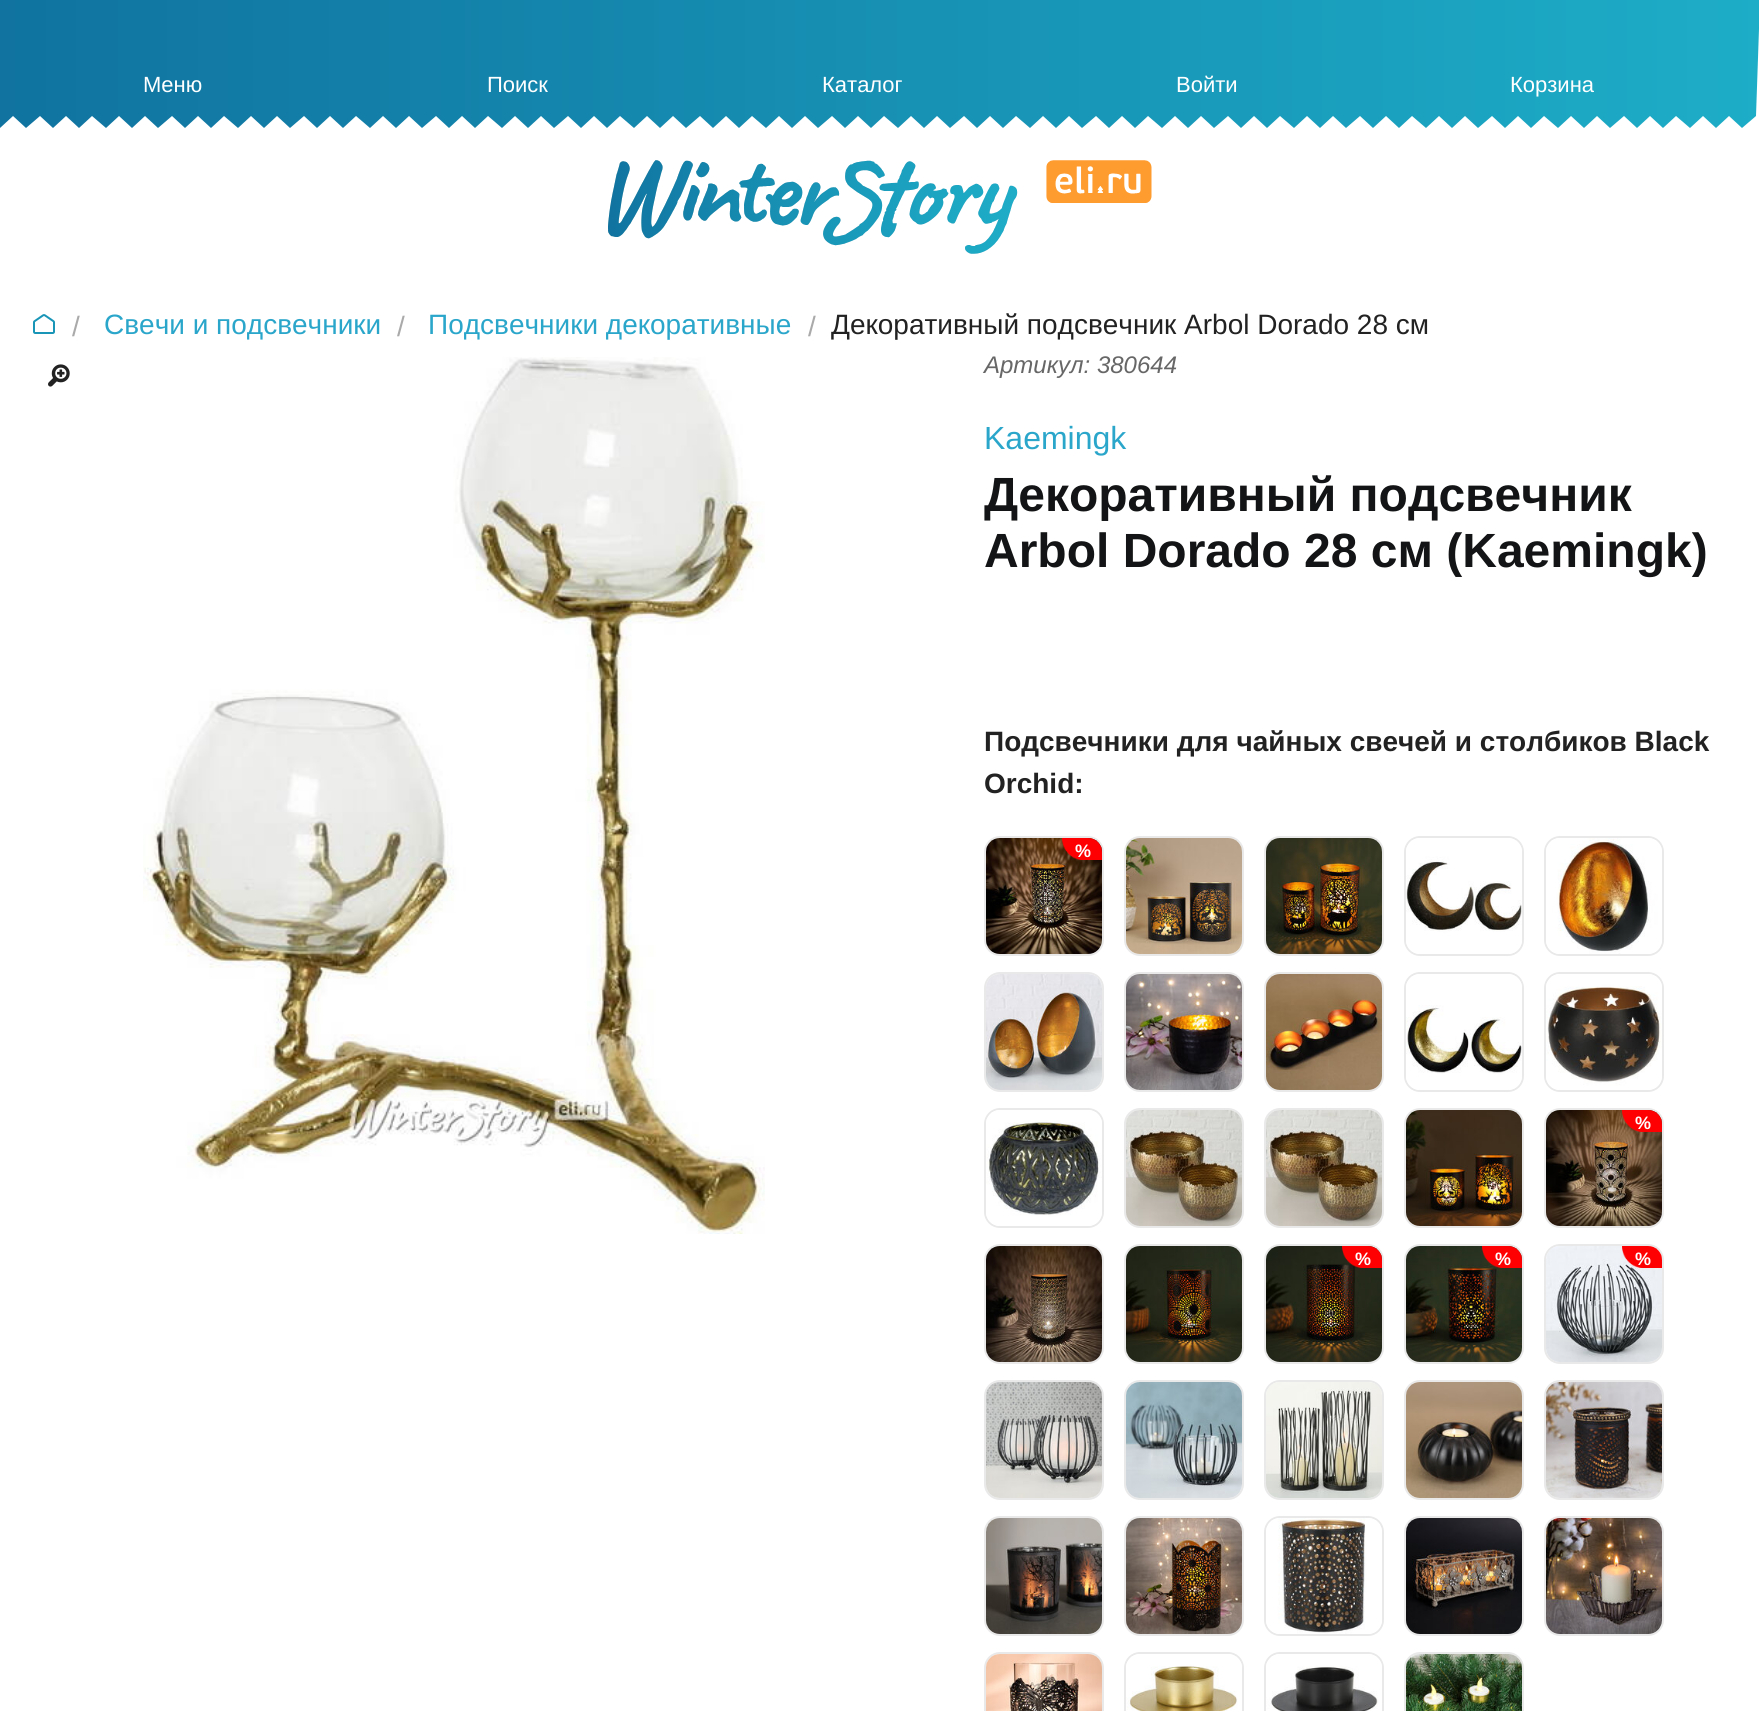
import math
import cairo

surface = cairo.ImageSurface(cairo.Format.RGB24, 1759, 1711)
ctx = cairo.Context(surface)
options = cairo.FontOptions()
options.set_hint_metrics(cairo.HintMetrics.OFF)
options.set_hint_style(cairo.HintStyle.NONE)
ctx.set_font_options(options)
ctx.set_miter_limit(4)


def ink(r, g, b):
    ctx.set_source_rgb(r / 255, g / 255, b / 255)


def write(x, y, s, family, size, color, bold=False, italic=False):
    ctx.select_font_face(family, cairo.FontSlant.ITALIC if italic else cairo.FontSlant.NORMAL, cairo.FontWeight.BOLD if bold else cairo.FontWeight.NORMAL)
    ctx.set_font_size(size)
    ink(*color)
    ctx.move_to(x, y)
    ctx.show_text(s)


def round_path(x, y, w, h, r):
    ctx.new_sub_path()
    for i, (u, v) in enumerate([(x + w - r, y + h - r), (x + r, y + h - r), (x + r, y + r), (x + w - r, y + r)]):
        ctx.arc(u, v, r, i * math.pi / 2, (i + 1) * math.pi / 2)
    ctx.close_path()


def paste(path, x, y, w, h):
    ctx.save()
    ctx.set_source_surface(cairo.ImageSurface.create_from_png(path), x, y)
    ctx.rectangle(x, y, w, h)
    ctx.fill()
    ctx.restore()


s1 = dict(family="Liberation Sans", size=22, color=(255, 255, 255))
s2 = dict(family="Liberation Sans", size=28, color=(170, 170, 170))
s3 = dict(family="Liberation Sans", size=28, color=(43, 166, 203))
s4 = dict(family="Liberation Sans", size=28, color=(34, 34, 34))
s5 = dict(family="Liberation Sans", size=24, color=(103, 103, 103), italic=True)
s6 = dict(family="Liberation Sans", size=32, color=(43, 166, 203))
s7 = dict(family="Liberation Sans", size=48, color=(19, 20, 21), bold=True)
s8 = dict(family="Liberation Sans", size=28, color=(34, 34, 34), bold=True)
s9 = dict(family="Liberation Sans", size=18, color=(255, 255, 255), bold=True)

ink(255, 255, 255)
ctx.paint()
gradient = cairo.LinearGradient(0, 64, 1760, 64)
gradient.add_color_stop_rgba(0, 0.063, 0.451, 0.627, 1)
gradient.add_color_stop_rgba(1, 0.114, 0.678, 0.78, 1)
ctx.set_source(gradient)
ctx.new_path()
ctx.move_to(0, 0)
ctx.line_to(0, 128)
ctx.line_to(13, 116)
ctx.line_to(26, 128)
ctx.line_to(40, 116)
ctx.line_to(53, 128)
ctx.line_to(66, 116)
ctx.line_to(79, 128)
ctx.line_to(92, 116)
ctx.line_to(106, 128)
ctx.line_to(119, 116)
ctx.line_to(132, 128)
ctx.line_to(145, 116)
ctx.line_to(158, 128)
ctx.line_to(172, 116)
ctx.line_to(185, 128)
ctx.line_to(198, 116)
ctx.line_to(211, 128)
ctx.line_to(224, 116)
ctx.line_to(238, 128)
ctx.line_to(251, 116)
ctx.line_to(264, 128)
ctx.line_to(277, 116)
ctx.line_to(290, 128)
ctx.line_to(304, 116)
ctx.line_to(317, 128)
ctx.line_to(330, 116)
ctx.line_to(343, 128)
ctx.line_to(356, 116)
ctx.line_to(370, 128)
ctx.line_to(383, 116)
ctx.line_to(396, 128)
ctx.line_to(409, 116)
ctx.line_to(422, 128)
ctx.line_to(436, 116)
ctx.line_to(449, 128)
ctx.line_to(462, 116)
ctx.line_to(475, 128)
ctx.line_to(488, 116)
ctx.line_to(502, 128)
ctx.line_to(515, 116)
ctx.line_to(528, 128)
ctx.line_to(541, 116)
ctx.line_to(554, 128)
ctx.line_to(568, 116)
ctx.line_to(581, 128)
ctx.line_to(594, 116)
ctx.line_to(607, 128)
ctx.line_to(620, 116)
ctx.line_to(634, 128)
ctx.line_to(647, 116)
ctx.line_to(660, 128)
ctx.line_to(673, 116)
ctx.line_to(686, 128)
ctx.line_to(700, 116)
ctx.line_to(713, 128)
ctx.line_to(726, 116)
ctx.line_to(739, 128)
ctx.line_to(752, 116)
ctx.line_to(766, 128)
ctx.line_to(779, 116)
ctx.line_to(792, 128)
ctx.line_to(805, 116)
ctx.line_to(818, 128)
ctx.line_to(832, 116)
ctx.line_to(845, 128)
ctx.line_to(858, 116)
ctx.line_to(871, 128)
ctx.line_to(884, 116)
ctx.line_to(898, 128)
ctx.line_to(911, 116)
ctx.line_to(924, 128)
ctx.line_to(937, 116)
ctx.line_to(950, 128)
ctx.line_to(964, 116)
ctx.line_to(977, 128)
ctx.line_to(990, 116)
ctx.line_to(1003, 128)
ctx.line_to(1016, 116)
ctx.line_to(1030, 128)
ctx.line_to(1043, 116)
ctx.line_to(1056, 128)
ctx.line_to(1069, 116)
ctx.line_to(1082, 128)
ctx.line_to(1096, 116)
ctx.line_to(1109, 128)
ctx.line_to(1122, 116)
ctx.line_to(1135, 128)
ctx.line_to(1148, 116)
ctx.line_to(1162, 128)
ctx.line_to(1175, 116)
ctx.line_to(1188, 128)
ctx.line_to(1201, 116)
ctx.line_to(1214, 128)
ctx.line_to(1228, 116)
ctx.line_to(1241, 128)
ctx.line_to(1254, 116)
ctx.line_to(1267, 128)
ctx.line_to(1280, 116)
ctx.line_to(1294, 128)
ctx.line_to(1307, 116)
ctx.line_to(1320, 128)
ctx.line_to(1333, 116)
ctx.line_to(1346, 128)
ctx.line_to(1360, 116)
ctx.line_to(1373, 128)
ctx.line_to(1386, 116)
ctx.line_to(1399, 128)
ctx.line_to(1412, 116)
ctx.line_to(1426, 128)
ctx.line_to(1439, 116)
ctx.line_to(1452, 128)
ctx.line_to(1465, 116)
ctx.line_to(1478, 128)
ctx.line_to(1492, 116)
ctx.line_to(1505, 128)
ctx.line_to(1518, 116)
ctx.line_to(1531, 128)
ctx.line_to(1544, 116)
ctx.line_to(1558, 128)
ctx.line_to(1571, 116)
ctx.line_to(1584, 128)
ctx.line_to(1597, 116)
ctx.line_to(1610, 128)
ctx.line_to(1624, 116)
ctx.line_to(1637, 128)
ctx.line_to(1650, 116)
ctx.line_to(1663, 128)
ctx.line_to(1676, 116)
ctx.line_to(1690, 128)
ctx.line_to(1703, 116)
ctx.line_to(1716, 128)
ctx.line_to(1729, 116)
ctx.line_to(1742, 128)
ctx.line_to(1756, 116)
ctx.line_to(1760, 0)
ctx.close_path()
ctx.fill()
write(143, 92, "Меню", **s1)
write(487, 92, "Поиск", **s1)
write(822, 92, "Каталог", **s1)
write(1176, 92, "Войти", **s1)
write(1510, 92, "Корзина", **s1)
paste("pic1.png", 608, 160, 544, 94)
paste("pic2.png", 33, 314, 22, 20)
write(72, 336, "/", **s2)
write(104, 334, "Свечи и подсвечники", **s3)
write(397, 336, "/", **s2)
write(428, 334, "Подсвечники декоративные", **s3)
write(808, 336, "/", **s2)
write(831, 334, "Декоративный подсвечник Arbol Dorado 28 см", **s4)
paste("pic3.png", 48, 364, 22, 23)
paste("pic4.png", 143, 357, 622, 877)
write(984, 373, "Артикул: 380644", **s5)
write(984, 449, "Kaemingk", **s6)
write(984, 511, "Декоративный подсвечник", **s7)
write(984, 567, "Arbol Dorado 28 см (Kaemingk)", **s7)
write(984, 751, "Подсвечники для чайных свечей и столбиков Black", **s8)
write(984, 793, "Orchid:", **s8)
round_path(985, 837, 118, 118, 15)
ink(233, 233, 233)
ctx.stroke()
paste("pic5.png", 986, 838, 116, 116)
paste("pic6.png", 1062, 838, 40, 22)
write(1075, 857, "%", **s9)
round_path(1125, 837, 118, 118, 15)
ink(233, 233, 233)
ctx.stroke()
paste("pic7.png", 1126, 838, 116, 116)
round_path(1265, 837, 118, 118, 15)
ctx.stroke()
paste("pic8.png", 1266, 838, 116, 116)
round_path(1405, 837, 118, 118, 15)
ctx.stroke()
paste("pic9.png", 1406, 838, 116, 116)
round_path(1545, 837, 118, 118, 15)
ctx.stroke()
paste("pic10.png", 1546, 838, 116, 116)
round_path(985, 973, 118, 118, 15)
ctx.stroke()
paste("pic11.png", 986, 974, 116, 116)
round_path(1125, 973, 118, 118, 15)
ctx.stroke()
paste("pic12.png", 1126, 974, 116, 116)
round_path(1265, 973, 118, 118, 15)
ctx.stroke()
paste("pic13.png", 1266, 974, 116, 116)
round_path(1405, 973, 118, 118, 15)
ctx.stroke()
paste("pic14.png", 1406, 974, 116, 116)
round_path(1545, 973, 118, 118, 15)
ctx.stroke()
paste("pic15.png", 1546, 974, 116, 116)
round_path(985, 1109, 118, 118, 15)
ctx.stroke()
paste("pic16.png", 986, 1110, 116, 116)
round_path(1125, 1109, 118, 118, 15)
ctx.stroke()
paste("pic17.png", 1126, 1110, 116, 116)
round_path(1265, 1109, 118, 118, 15)
ctx.stroke()
paste("pic18.png", 1266, 1110, 116, 116)
round_path(1405, 1109, 118, 118, 15)
ctx.stroke()
paste("pic19.png", 1406, 1110, 116, 116)
round_path(1545, 1109, 118, 118, 15)
ctx.stroke()
paste("pic20.png", 1546, 1110, 116, 116)
paste("pic21.png", 1622, 1110, 40, 22)
write(1635, 1129, "%", **s9)
round_path(985, 1245, 118, 118, 15)
ink(233, 233, 233)
ctx.stroke()
paste("pic22.png", 986, 1246, 116, 116)
round_path(1125, 1245, 118, 118, 15)
ctx.stroke()
paste("pic23.png", 1126, 1246, 116, 116)
round_path(1265, 1245, 118, 118, 15)
ctx.stroke()
paste("pic24.png", 1266, 1246, 116, 116)
paste("pic25.png", 1342, 1246, 40, 22)
write(1355, 1265, "%", **s9)
round_path(1405, 1245, 118, 118, 15)
ink(233, 233, 233)
ctx.stroke()
paste("pic26.png", 1406, 1246, 116, 116)
paste("pic27.png", 1482, 1246, 40, 22)
write(1495, 1265, "%", **s9)
round_path(1545, 1245, 118, 118, 15)
ink(233, 233, 233)
ctx.stroke()
paste("pic28.png", 1546, 1246, 116, 116)
paste("pic29.png", 1622, 1246, 40, 22)
write(1635, 1265, "%", **s9)
round_path(985, 1381, 118, 118, 15)
ink(233, 233, 233)
ctx.stroke()
paste("pic30.png", 986, 1382, 116, 116)
round_path(1125, 1381, 118, 118, 15)
ctx.stroke()
paste("pic31.png", 1126, 1382, 116, 116)
round_path(1265, 1381, 118, 118, 15)
ctx.stroke()
paste("pic32.png", 1266, 1382, 116, 116)
round_path(1405, 1381, 118, 118, 15)
ctx.stroke()
paste("pic33.png", 1406, 1382, 116, 116)
round_path(1545, 1381, 118, 118, 15)
ctx.stroke()
paste("pic34.png", 1546, 1382, 116, 116)
round_path(985, 1517, 118, 118, 15)
ctx.stroke()
paste("pic35.png", 986, 1518, 116, 116)
round_path(1125, 1517, 118, 118, 15)
ctx.stroke()
paste("pic36.png", 1126, 1518, 116, 116)
round_path(1265, 1517, 118, 118, 15)
ctx.stroke()
paste("pic37.png", 1266, 1518, 116, 116)
round_path(1405, 1517, 118, 118, 15)
ctx.stroke()
paste("pic38.png", 1406, 1518, 116, 116)
round_path(1545, 1517, 118, 118, 15)
ctx.stroke()
paste("pic39.png", 1546, 1518, 116, 116)
round_path(985, 1653, 118, 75, 15)
ctx.stroke()
paste("pic40.png", 986, 1654, 116, 57)
round_path(1125, 1653, 118, 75, 15)
ctx.stroke()
paste("pic41.png", 1126, 1654, 116, 57)
round_path(1265, 1653, 118, 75, 15)
ctx.stroke()
paste("pic42.png", 1266, 1654, 116, 57)
round_path(1405, 1653, 118, 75, 15)
ctx.stroke()
paste("pic43.png", 1406, 1654, 116, 57)
surface.write_to_png("screenshot.png")
